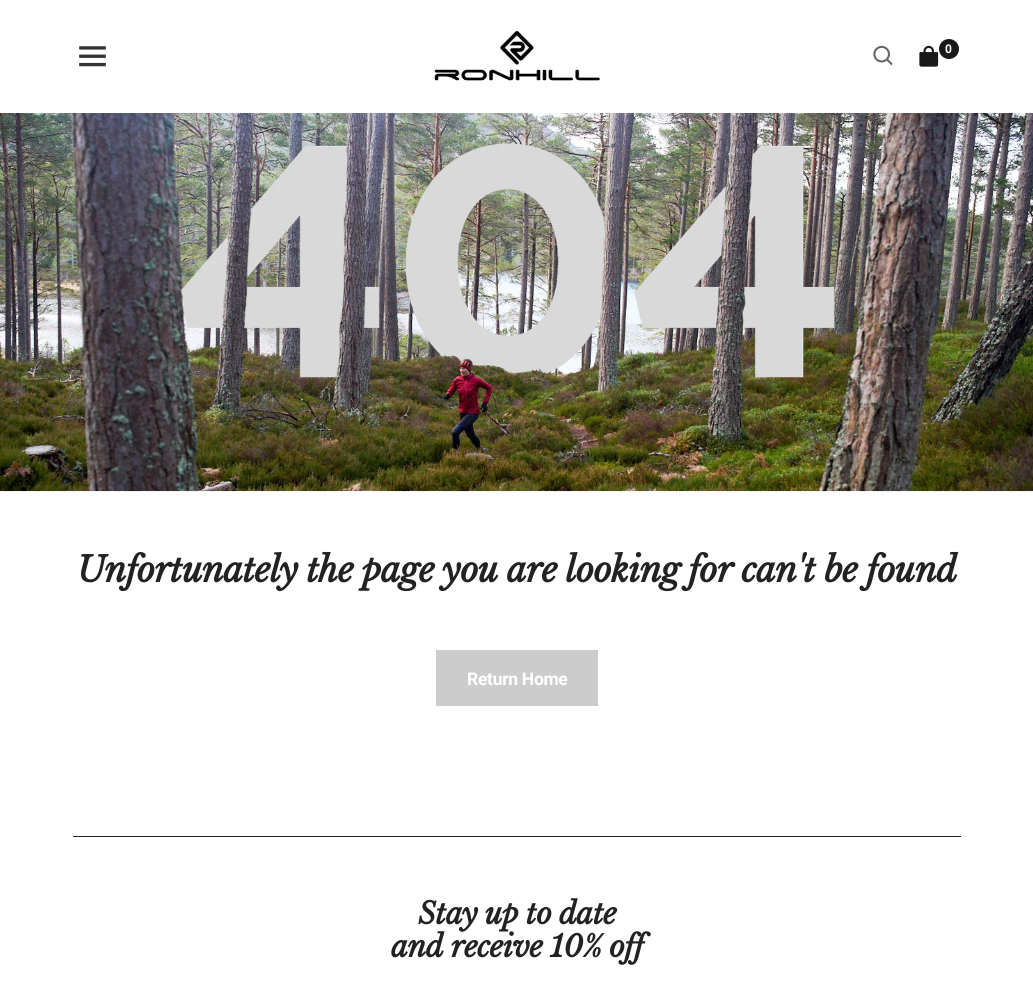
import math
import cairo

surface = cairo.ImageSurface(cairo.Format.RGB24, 1033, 989)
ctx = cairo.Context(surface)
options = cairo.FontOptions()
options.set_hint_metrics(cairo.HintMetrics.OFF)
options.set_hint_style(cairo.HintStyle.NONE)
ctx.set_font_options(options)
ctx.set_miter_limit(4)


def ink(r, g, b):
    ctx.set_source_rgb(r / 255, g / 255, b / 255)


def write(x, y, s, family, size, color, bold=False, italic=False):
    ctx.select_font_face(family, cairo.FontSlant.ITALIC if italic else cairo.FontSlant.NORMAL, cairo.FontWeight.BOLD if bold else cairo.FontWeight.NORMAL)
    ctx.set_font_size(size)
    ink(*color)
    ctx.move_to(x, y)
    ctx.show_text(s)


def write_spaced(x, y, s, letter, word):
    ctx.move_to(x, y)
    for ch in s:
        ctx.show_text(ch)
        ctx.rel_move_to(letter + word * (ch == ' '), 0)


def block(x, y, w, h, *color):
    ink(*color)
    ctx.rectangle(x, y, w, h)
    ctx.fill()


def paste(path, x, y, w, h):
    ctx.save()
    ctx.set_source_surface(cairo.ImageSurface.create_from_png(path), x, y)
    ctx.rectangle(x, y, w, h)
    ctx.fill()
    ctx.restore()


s1 = dict(family="Roboto", size=12, color=(255, 255, 255), bold=True)
s2 = dict(family="Roboto", size=15, color=(81, 80, 101))

ink(255, 255, 255)
ctx.paint()
paste("pic1.png", 434, 30, 167, 51)
paste("pic2.png", 79, 46, 27, 21)
paste("pic3.png", 873, 45, 20, 21)
paste("pic4.png", 919, 45, 20, 22)
ink(25, 25, 25)
ctx.arc(949, 49, 10, 0, 2 * math.pi)
ctx.fill()
write(945, 53, "0", **s1)
paste("pic5.png", 0, 113, 1033, 379)
write(136, 140, ".", **s2)
ctx.select_font_face("Libre Baskerville", cairo.FontSlant.ITALIC, cairo.FontWeight.BOLD)
ctx.set_font_size(35)
ink(34, 34, 34)
write_spaced(77, 582, "Unfortunately the page you are looking for can't be found", -0.7, 0)
block(436, 650, 162, 56, 204, 204, 204)
ctx.select_font_face("Roboto", cairo.FontSlant.NORMAL, cairo.FontWeight.BOLD)
ctx.set_font_size(17.5)
ink(255, 255, 255)
write_spaced(467, 685, "Return Home", -0.3, 0)
block(73, 836, 888, 1, 38, 38, 38)
ctx.select_font_face("Libre Baskerville", cairo.FontSlant.ITALIC, cairo.FontWeight.BOLD)
ctx.set_font_size(30)
ink(34, 34, 34)
write_spaced(418, 924, "Stay up to date", -0.6, 0)
write_spaced(391, 957, "and receive 10% off", -0.6, 0)
surface.write_to_png("screenshot.png")
